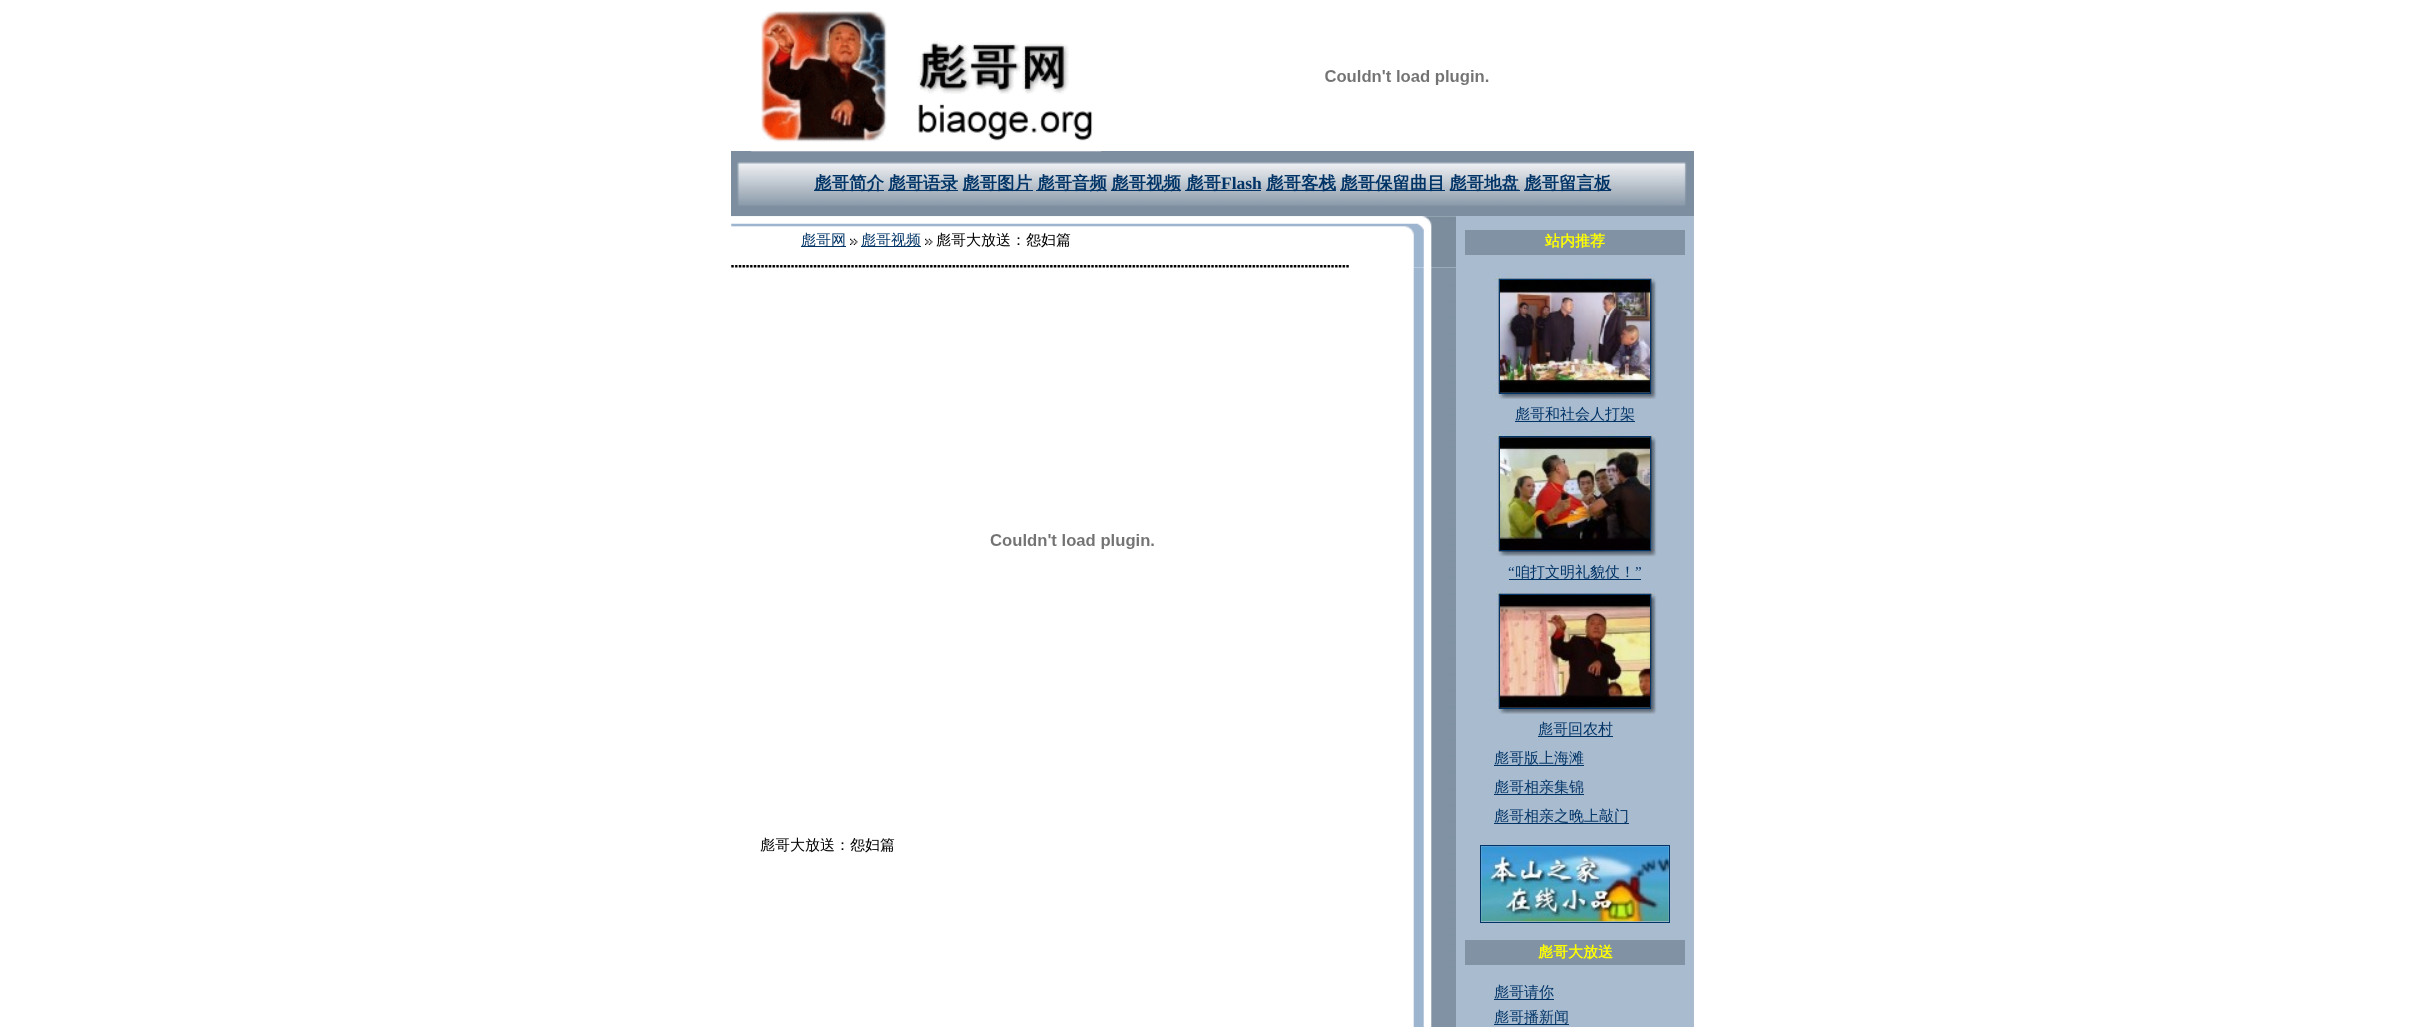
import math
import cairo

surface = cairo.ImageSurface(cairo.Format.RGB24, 2424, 1027)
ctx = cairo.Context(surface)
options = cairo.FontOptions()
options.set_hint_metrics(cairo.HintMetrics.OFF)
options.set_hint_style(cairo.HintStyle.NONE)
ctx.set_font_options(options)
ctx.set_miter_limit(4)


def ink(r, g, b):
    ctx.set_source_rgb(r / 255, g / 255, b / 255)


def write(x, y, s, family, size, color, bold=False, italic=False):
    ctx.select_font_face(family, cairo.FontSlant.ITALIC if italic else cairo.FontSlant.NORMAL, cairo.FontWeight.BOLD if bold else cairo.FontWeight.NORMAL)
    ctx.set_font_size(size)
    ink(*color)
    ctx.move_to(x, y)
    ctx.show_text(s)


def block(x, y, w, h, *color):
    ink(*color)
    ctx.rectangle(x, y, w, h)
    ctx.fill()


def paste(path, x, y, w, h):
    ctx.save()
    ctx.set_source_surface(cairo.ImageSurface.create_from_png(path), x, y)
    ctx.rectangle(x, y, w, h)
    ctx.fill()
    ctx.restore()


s1 = dict(family="WenQuanYi Zen Hei", size=17.5, color=(0, 51, 102), bold=True)
s2 = dict(family="Liberation Serif", size=17.5, color=(0, 51, 102), bold=True)
s3 = dict(family="WenQuanYi Zen Hei Medium", size=15, color=(0, 51, 102))
s4 = dict(family="WenQuanYi Zen Hei Medium", size=15, color=(0, 0, 0))
s5 = dict(family="WenQuanYi Zen Hei", size=15, color=(255, 255, 0), bold=True)
s6 = dict(family="Liberation Serif", size=15, color=(0, 51, 102))

ink(255, 255, 255)
ctx.paint()
block(731, 151, 963, 65, 125, 142, 160)
paste("pic1.png", 751, 11, 351, 141)
paste("pic2.png", 1325, 70, 164, 15)
paste("pic3.png", 731, 162, 963, 55)
block(814, 190, 70, 1, 0, 51, 102)
write(814, 189, "彪哥简介", **s1)
block(888, 190, 70, 1, 0, 51, 102)
write(888, 189, "彪哥语录", **s1)
block(963, 190, 70, 1, 0, 51, 102)
write(962, 189, "彪哥图片", **s1)
block(1036, 190, 70, 1, 0, 51, 102)
write(1037, 189, "彪哥音频", **s1)
block(1111, 190, 70, 1, 0, 51, 102)
write(1111, 189, "彪哥视频", **s1)
block(1185, 190, 76, 1, 0, 51, 102)
write(1186, 189, "彪哥", **s1)
write(1221, 189, "Flash", **s2)
block(1266, 190, 70, 1, 0, 51, 102)
write(1266, 189, "彪哥客栈", **s1)
block(1340, 190, 105, 1, 0, 51, 102)
write(1340, 189, "彪哥保留曲目", **s1)
block(1450, 190, 70, 1, 0, 51, 102)
write(1449, 189, "彪哥地盘", **s1)
block(1524, 190, 87, 1, 0, 51, 102)
write(1524, 189, "彪哥留言板", **s1)
paste("pic4.png", 731, 216, 725, 52)
block(801, 246, 45, 1, 0, 51, 102)
write(801, 245, "彪哥网", **s3)
paste("pic5.png", 850, 238, 8, 7)
block(861, 246, 60, 1, 0, 51, 102)
write(861, 245, "彪哥视频", **s3)
paste("pic6.png", 925, 238, 8, 7)
write(936, 245, "彪哥大放送：怨妇篇", **s4)
paste("pic7.png", 731, 265, 618, 3)
block(1456, 216, 238, 52, 169, 187, 207)
block(1465, 230, 220, 25, 128, 146, 163)
write(1545, 246, "站内推荐", **s5)
paste("pic8.png", 1413, 267, 44, 760)
paste("pic9.png", 990, 534, 164, 15)
write(760, 850, "彪哥大放送：怨妇篇", **s4)
block(1456, 268, 238, 759, 169, 187, 207)
paste("pic10.png", 1494, 274, 163, 125)
ctx.rectangle(1499.5, 279.5, 151, 114)
ink(0, 51, 102)
ctx.set_line_width(1)
ctx.stroke()
paste("pic11.png", 1500, 280, 150, 113)
block(1515, 421, 120, 1, 0, 51, 102)
write(1515, 419, "彪哥和社会人打架", **s3)
paste("pic12.png", 1494, 431, 163, 126)
ctx.rectangle(1499.5, 436.5, 151, 114)
ctx.stroke()
paste("pic13.png", 1500, 437, 150, 113)
write(1508, 577, "“", **s6)
block(1509, 579, 132, 1, 0, 51, 102)
write(1515, 577, "咱打文明礼貌仗！", **s3)
write(1635, 577, "”", **s6)
paste("pic10.png", 1494, 589, 163, 125)
ctx.rectangle(1499.5, 594.5, 151, 114)
ctx.stroke()
paste("pic14.png", 1500, 595, 150, 113)
write(1538, 734, "彪哥回农村", **s3)
block(1538, 736, 75, 1, 0, 51, 102)
write(1494, 763, "彪哥版上海滩", **s3)
block(1494, 765, 90, 1, 0, 51, 102)
write(1494, 792, "彪哥相亲集锦", **s3)
block(1494, 794, 90, 1, 0, 51, 102)
write(1494, 821, "彪哥相亲之晚上敲门", **s3)
block(1494, 823, 135, 1, 0, 51, 102)
ctx.rectangle(1480.5, 845.5, 189, 77)
ctx.stroke()
paste("pic15.png", 1481, 846, 188, 76)
block(1465, 940, 220, 25, 128, 146, 163)
write(1538, 957, "彪哥大放送", **s5)
write(1494, 997, "彪哥请你", **s3)
block(1494, 999, 60, 1, 0, 51, 102)
block(1494, 1024, 75, 1, 0, 51, 102)
write(1494, 1022, "彪哥播新闻", **s3)
surface.write_to_png("screenshot.png")
